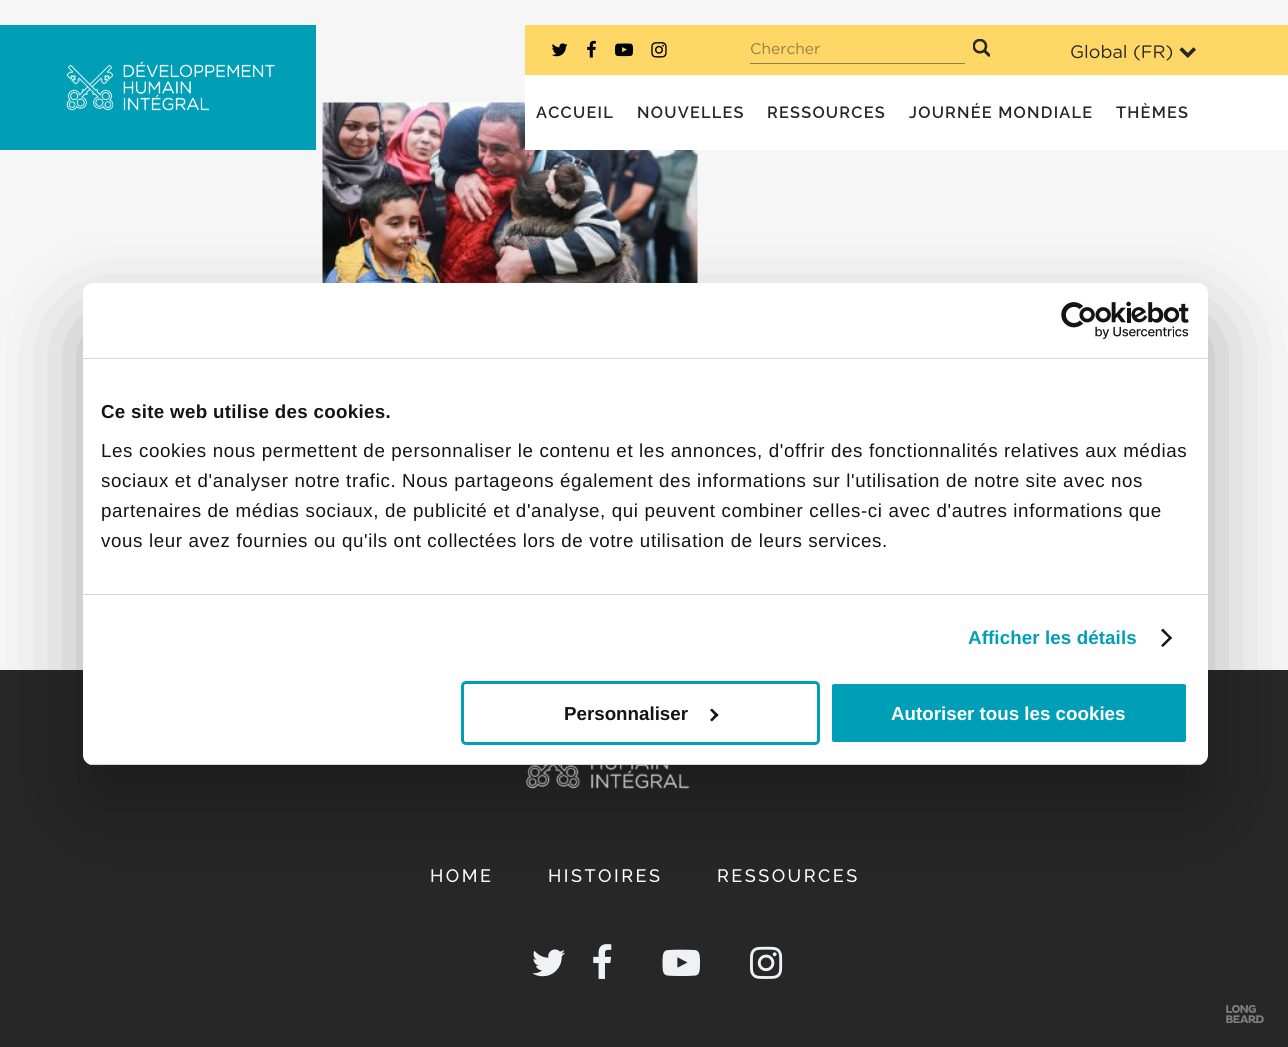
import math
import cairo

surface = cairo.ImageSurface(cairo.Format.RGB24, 1288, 1047)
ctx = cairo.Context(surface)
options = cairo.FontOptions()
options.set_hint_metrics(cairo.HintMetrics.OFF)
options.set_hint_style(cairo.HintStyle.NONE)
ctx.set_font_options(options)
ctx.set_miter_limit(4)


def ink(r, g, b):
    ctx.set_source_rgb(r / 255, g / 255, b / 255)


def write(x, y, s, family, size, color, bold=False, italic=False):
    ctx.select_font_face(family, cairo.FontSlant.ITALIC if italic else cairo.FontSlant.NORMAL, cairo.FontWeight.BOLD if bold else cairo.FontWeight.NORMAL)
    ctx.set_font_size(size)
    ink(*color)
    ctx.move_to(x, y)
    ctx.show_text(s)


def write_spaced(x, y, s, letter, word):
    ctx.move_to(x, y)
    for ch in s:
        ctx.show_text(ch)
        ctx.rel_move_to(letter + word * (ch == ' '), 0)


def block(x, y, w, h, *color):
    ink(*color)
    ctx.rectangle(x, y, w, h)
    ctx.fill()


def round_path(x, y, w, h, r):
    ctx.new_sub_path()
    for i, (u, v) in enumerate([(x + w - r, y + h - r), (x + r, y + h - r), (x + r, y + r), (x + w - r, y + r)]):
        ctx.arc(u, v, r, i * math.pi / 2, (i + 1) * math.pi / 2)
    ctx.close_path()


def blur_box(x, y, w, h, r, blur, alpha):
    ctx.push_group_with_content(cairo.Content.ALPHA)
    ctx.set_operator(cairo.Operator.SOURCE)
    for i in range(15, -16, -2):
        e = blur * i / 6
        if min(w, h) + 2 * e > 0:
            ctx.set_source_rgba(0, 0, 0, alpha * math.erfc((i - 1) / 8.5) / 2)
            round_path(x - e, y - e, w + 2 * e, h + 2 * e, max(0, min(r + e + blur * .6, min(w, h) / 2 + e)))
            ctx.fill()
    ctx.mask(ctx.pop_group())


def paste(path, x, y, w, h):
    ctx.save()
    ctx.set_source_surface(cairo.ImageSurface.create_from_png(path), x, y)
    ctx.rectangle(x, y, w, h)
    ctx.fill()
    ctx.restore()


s1 = dict(family="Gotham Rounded", size=15.5, color=(147, 127, 71))
s2 = dict(family="Gotham Rounded", size=18, color=(39, 39, 39))
s3 = dict(family="Liberation Sans", size=18.75, color=(20, 20, 20), bold=True)
s4 = dict(family="Liberation Sans", size=18.75, color=(255, 255, 255), bold=True)

ink(246, 246, 246)
ctx.paint()
block(0, 25, 316, 125, 0, 159, 183)
paste("pic1.png", 66, 61, 209, 50)
paste("pic8.png", 322, 102, 376, 181)
block(525, 75, 763, 75, 255, 255, 255)
block(525, 25, 763, 50, 254, 215, 102)
paste("pic2.png", 551, 43, 17, 14)
paste("pic3.png", 587, 40, 9, 18)
paste("pic4.png", 615, 43, 18, 14)
paste("pic5.png", 651, 42, 16, 16)
block(750, 63, 215, 1, 147, 127, 71)
write(750, 54, "Chercher", **s1)
paste("pic6.png", 973, 39, 17, 18)
write(1070, 58, "Global (FR)", **s2)
paste("pic7.png", 1179, 47, 17, 11)
ctx.select_font_face("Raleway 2 Thin")
ctx.set_font_size(16.25)
write_spaced(536, 118, "ACCUEIL", 1.25, 0)
write_spaced(637, 118, "NOUVELLES", 1.25, 0)
write_spaced(767, 118, "RESSOURCES", 1.25, 0)
write_spaced(909, 118, "JOURNÉE MONDIALE", 1.25, 0)
write_spaced(1116, 118, "THÈMES", 1.25, 0)
block(0, 670, 1288, 377, 39, 39, 39)
paste("pic9.png", 526, 765, 164, 24)
ctx.select_font_face("Raleway Thin")
ctx.set_font_size(18)
ink(255, 255, 255)
write_spaced(430, 882, "HOME", 2.5, 0)
write_spaced(548, 882, "HISTOIRES", 2.5, 0)
write_spaced(717, 882, "RESSOURCES", 2.5, 0)
paste("pic10.png", 532, 949, 33, 28)
paste("pic11.png", 593, 944, 19, 35)
paste("pic12.png", 662, 949, 38, 28)
paste("pic13.png", 750, 946, 33, 33)
paste("pic14.png", 1226, 1005, 38, 18)
ink(0, 0, 0)
blur_box(83, 323, 1125, 482, 10, 42.5, 0.3)
ink(255, 255, 255)
round_path(83, 283, 1125, 482, 10)
ctx.fill()
block(83, 358, 1125, 1, 214, 214, 214)
paste("pic15.png", 1061, 301, 128, 38)
block(83, 594, 1125, 1, 214, 214, 214)
ctx.select_font_face("Liberation Sans", cairo.FontSlant.NORMAL, cairo.FontWeight.BOLD)
ctx.set_font_size(18.75)
ink(20, 20, 20)
write_spaced(101, 418, "Ce site web utilise des cookies.", 0.3, 0)
ctx.select_font_face("Liberation Sans")
write_spaced(101, 457, "Les cookies nous permettent de personnaliser le contenu et les annonces, d'offrir des fonctionnalités relatives aux médias", 0.62, 0)
write_spaced(101, 487, "sociaux et d'analyser notre trafic. Nous partageons également des informations sur l'utilisation de notre site avec nos", 0.62, 0)
write_spaced(101, 517, "partenaires de médias sociaux, de publicité et d'analyse, qui peuvent combiner celles-ci avec d'autres informations que", 0.62, 0)
write_spaced(101, 547, "vous leur avez fournies ou qu'ils ont collectées lors de votre utilisation de leurs services.", 0.62, 0)
ctx.select_font_face("Liberation Sans", cairo.FontSlant.NORMAL, cairo.FontWeight.BOLD)
ink(0, 159, 183)
write_spaced(968, 644, "Afficher les détails", 0.1, 0)
ink(20, 20, 20)
ctx.new_path()
ctx.move_to(1163, 628.5)
ctx.line_to(1172, 638)
ctx.line_to(1170.5, 639.5)
ctx.line_to(1161, 630.5)
ctx.close_path()
ctx.fill()
ctx.new_path()
ctx.move_to(1170.5, 636)
ctx.line_to(1172, 638)
ctx.line_to(1163, 647)
ctx.line_to(1161, 645.5)
ctx.close_path()
ctx.fill()
ctx.save()
round_path(83, 283, 1125, 482, 10)
ctx.clip()
block(83, 764, 1125, 1, 214, 214, 214)
ctx.restore()
round_path(462.5, 682.5, 356, 61, 3.5)
ink(0, 159, 183)
ctx.set_line_width(3)
ctx.stroke()
write(564, 720, "Personnaliser", **s3)
ctx.new_path()
ctx.move_to(712, 708.5)
ctx.line_to(718.5, 715)
ctx.line_to(716.5, 717)
ctx.line_to(710, 710)
ctx.close_path()
ctx.fill()
ctx.new_path()
ctx.move_to(716.5, 713)
ctx.line_to(718.5, 715)
ctx.line_to(712, 721.5)
ctx.line_to(710, 720)
ctx.close_path()
ctx.fill()
ink(0, 159, 183)
round_path(830.5, 682.5, 357, 61, 3.5)
ctx.fill_preserve()
ink(255, 255, 255)
ctx.stroke()
write(891, 720, "Autoriser tous les cookies", **s4)
surface.write_to_png("screenshot.png")
